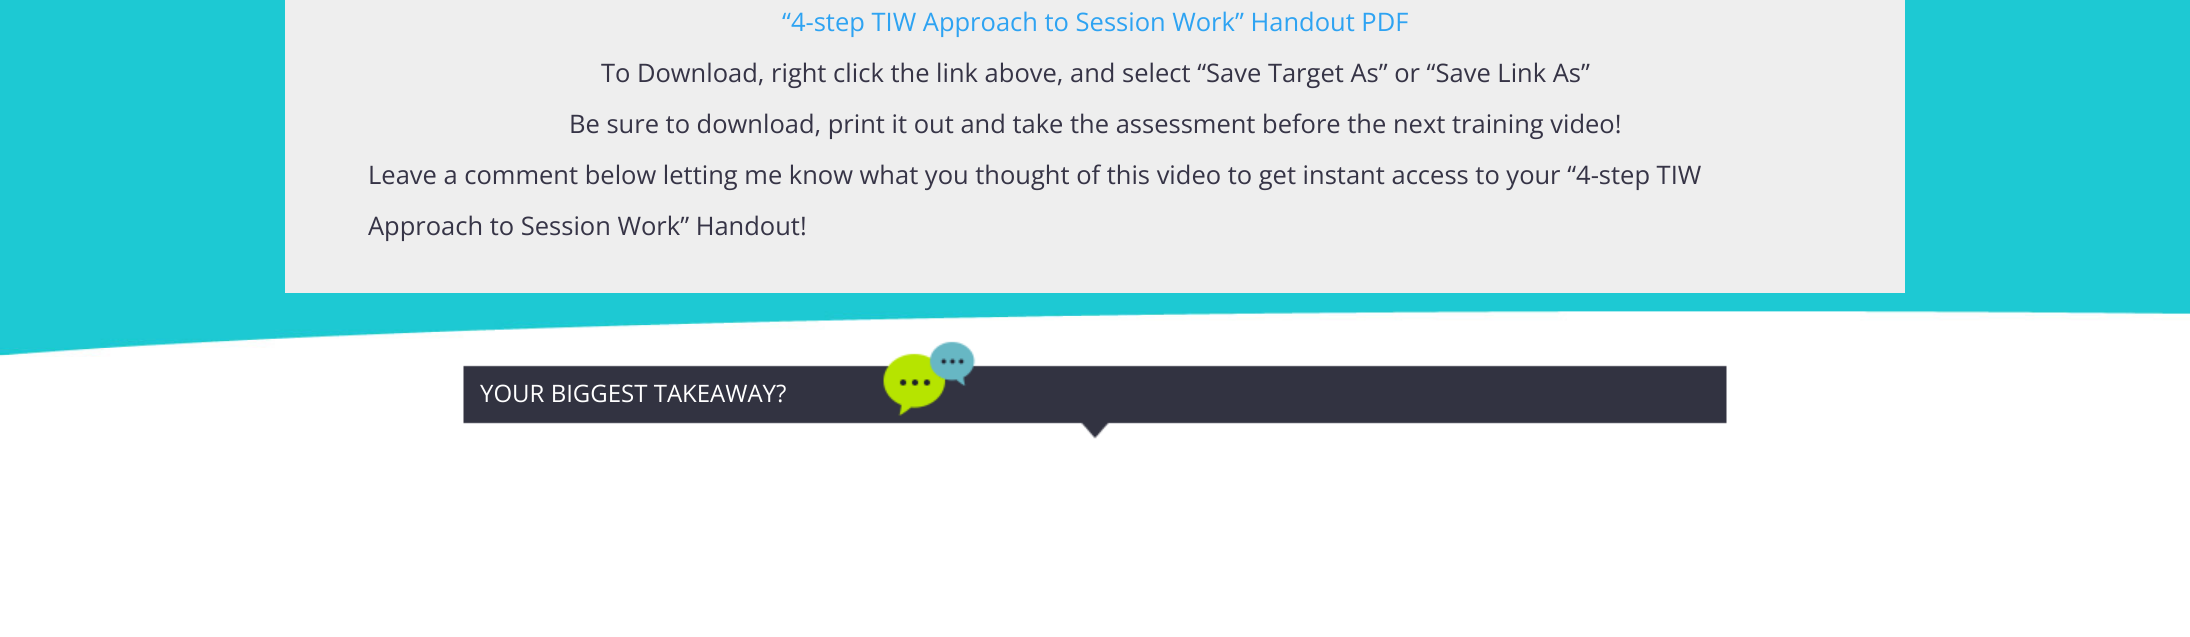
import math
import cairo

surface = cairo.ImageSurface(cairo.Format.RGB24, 2190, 637)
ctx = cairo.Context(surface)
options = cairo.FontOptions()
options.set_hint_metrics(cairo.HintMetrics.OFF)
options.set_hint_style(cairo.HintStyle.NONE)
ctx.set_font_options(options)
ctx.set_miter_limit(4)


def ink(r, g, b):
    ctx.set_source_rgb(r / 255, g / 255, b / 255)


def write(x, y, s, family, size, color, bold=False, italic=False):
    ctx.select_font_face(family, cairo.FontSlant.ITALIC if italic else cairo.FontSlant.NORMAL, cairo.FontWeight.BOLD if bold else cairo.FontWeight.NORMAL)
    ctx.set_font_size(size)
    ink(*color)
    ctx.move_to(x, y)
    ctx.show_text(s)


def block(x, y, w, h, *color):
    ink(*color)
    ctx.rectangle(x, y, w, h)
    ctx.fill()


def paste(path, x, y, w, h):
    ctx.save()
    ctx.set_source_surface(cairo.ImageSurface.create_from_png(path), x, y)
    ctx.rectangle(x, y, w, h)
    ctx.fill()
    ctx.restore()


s1 = dict(family="Open Sans", size=25.5, color=(46, 163, 242))
s2 = dict(family="Open Sans", size=25.5, color=(54, 52, 70))
s3 = dict(family="Open Sans", size=24, color=(255, 255, 255))

ink(255, 255, 255)
ctx.paint()
paste("pic1.png", 0, 0, 2190, 357)
block(285, 0, 1620, 293, 238, 238, 238)
write(782, 31, "“4-step TIW Approach to Session Work” Handout PDF", **s1)
write(601, 82, "To Download, right click the link above, and select “Save Target As” or “Save Link As”", **s2)
write(569, 133, "Be sure to download, print it out and take the assessment before the next training video!", **s2)
write(368, 184, "Leave a comment below letting me know what you thought of this video to get instant access to your “4-step TIW", **s2)
write(368, 235, "Approach to Session Work” Handout!", **s2)
paste("pic2.png", 463, 333, 1264, 106)
write(480, 402, "YOUR BIGGEST TAKEAWAY?", **s3)
surface.write_to_png("screenshot.png")
